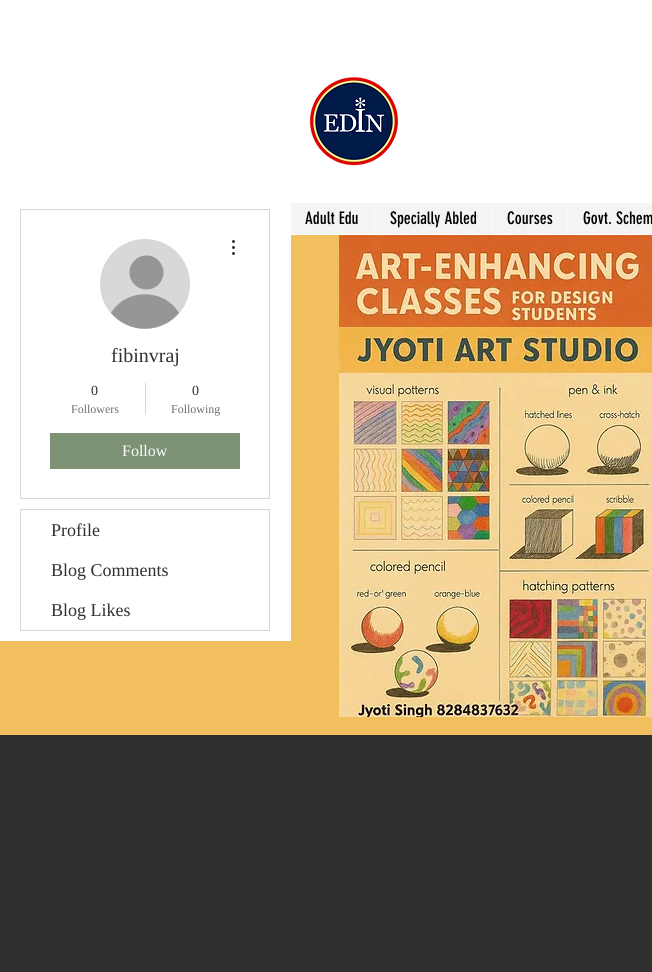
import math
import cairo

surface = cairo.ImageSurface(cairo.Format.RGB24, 652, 972)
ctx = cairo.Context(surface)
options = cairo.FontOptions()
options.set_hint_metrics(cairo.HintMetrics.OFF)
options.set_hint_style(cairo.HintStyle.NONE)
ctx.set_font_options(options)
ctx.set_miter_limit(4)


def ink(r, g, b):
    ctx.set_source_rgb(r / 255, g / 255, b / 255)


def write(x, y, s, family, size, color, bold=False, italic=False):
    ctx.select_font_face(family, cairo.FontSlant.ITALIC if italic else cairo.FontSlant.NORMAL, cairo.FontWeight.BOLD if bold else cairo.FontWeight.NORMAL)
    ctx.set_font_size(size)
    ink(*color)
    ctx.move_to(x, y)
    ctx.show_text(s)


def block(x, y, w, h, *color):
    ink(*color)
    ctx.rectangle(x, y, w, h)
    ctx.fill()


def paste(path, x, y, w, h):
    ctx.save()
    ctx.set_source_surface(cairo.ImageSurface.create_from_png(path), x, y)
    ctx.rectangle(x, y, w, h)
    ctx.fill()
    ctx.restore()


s1 = dict(family="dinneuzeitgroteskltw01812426", size=17, color=(0, 0, 0))
s2 = dict(family="Liberation Serif", size=20, color=(48, 48, 48))
s3 = dict(family="Liberation Serif", size=14, color=(48, 48, 48))
s4 = dict(family="Liberation Serif", size=12, color=(110, 110, 110))
s5 = dict(family="Liberation Serif", size=16, color=(255, 255, 255))
s6 = dict(family="Liberation Serif", size=18, color=(48, 48, 48))

ink(48, 48, 48)
ctx.paint()
block(0, 0, 652, 235, 255, 255, 255)
paste("pic1.png", 309, 77, 90, 89)
block(291, 203, 361, 31, 244, 244, 244)
write(305, 224, "Adult Edu", **s1)
block(374, 203, 1, 31, 250, 250, 250)
write(390, 224, "Specially Abled", **s1)
block(491, 203, 1, 31, 250, 250, 250)
write(507, 224, "Courses", **s1)
block(567, 203, 1, 31, 250, 250, 250)
write(583, 224, "Govt. Schem", **s1)
block(0, 235, 652, 500, 242, 191, 94)
paste("pic2.png", 339, 235, 313, 482)
block(0, 235, 291, 406, 255, 255, 255)
ctx.rectangle(20.5, 209.5, 249, 289)
ink(214, 214, 214)
ctx.set_line_width(1)
ctx.stroke()
ink(216, 216, 216)
ctx.arc(145, 284, 45, 0, 2 * math.pi)
ctx.fill()
ink(150, 150, 150)
ctx.arc(146.5, 272.5, 17, 0, 2 * math.pi)
ctx.fill()
ctx.new_path()
ctx.move_to(179, 313)
ctx.curve_to(161, 334, 129, 334, 111, 313)
ctx.curve_to(126, 288, 164, 288, 179, 313)
ctx.close_path()
ctx.fill()
paste("pic3.png", 232, 240, 3, 15)
write(111, 362, "fibinvraj", **s2)
write(91, 395, "0", **s3)
write(71, 413, "Followers", **s4)
block(145, 383, 1, 32, 214, 214, 214)
write(192, 395, "0", **s3)
write(171, 413, "Following", **s4)
block(50, 433, 190, 36, 125, 145, 116)
write(122, 456, "Follow", **s5)
ctx.rectangle(20.5, 509.5, 249, 121)
ink(214, 214, 214)
ctx.stroke()
write(51, 536, "Profile", **s6)
write(51, 576, "Blog Comments", **s6)
write(51, 616, "Blog Likes", **s6)
surface.write_to_png("screenshot.png")
